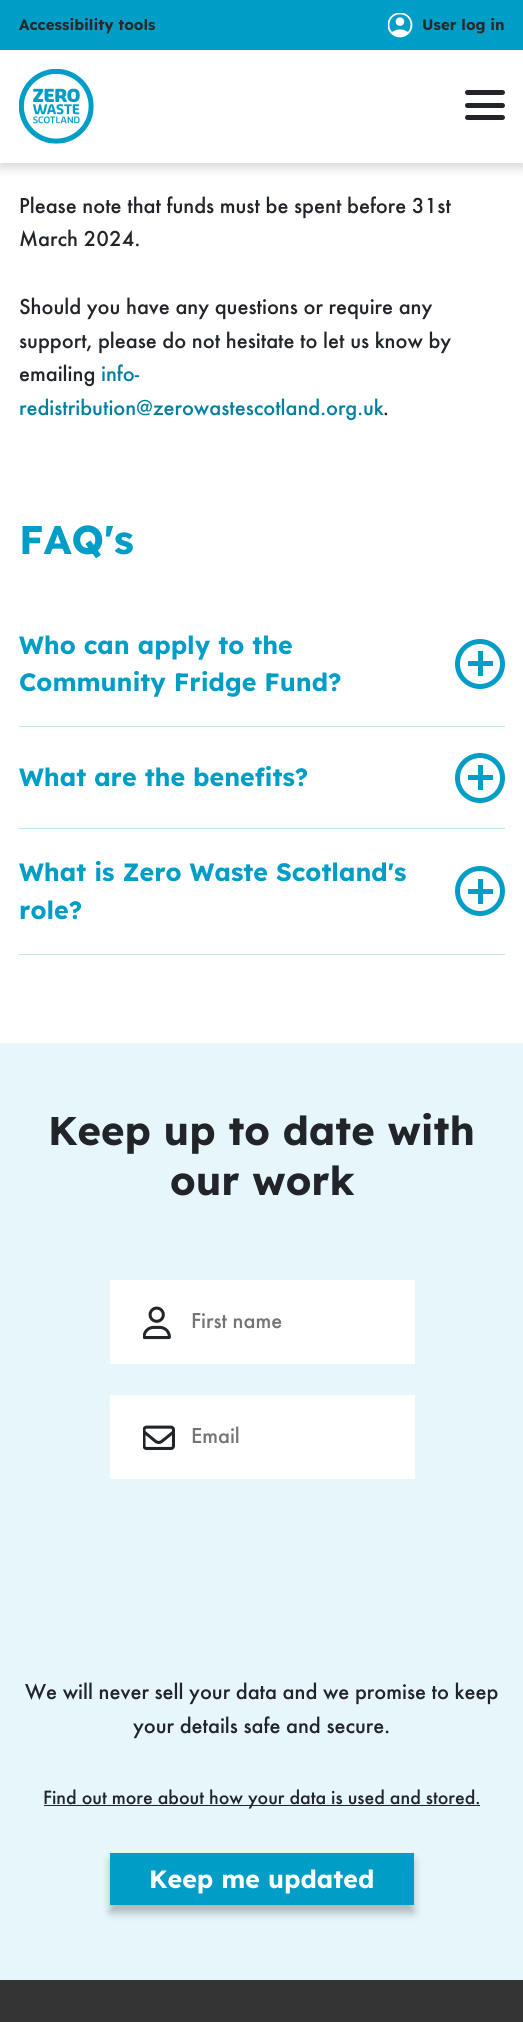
import math
import cairo

surface = cairo.ImageSurface(cairo.Format.RGB24, 523, 2022)
ctx = cairo.Context(surface)
options = cairo.FontOptions()
options.set_hint_metrics(cairo.HintMetrics.OFF)
options.set_hint_style(cairo.HintStyle.NONE)
ctx.set_font_options(options)
ctx.set_miter_limit(4)


def ink(r, g, b):
    ctx.set_source_rgb(r / 255, g / 255, b / 255)


def write(x, y, s, family, size, color, bold=False, italic=False):
    ctx.select_font_face(family, cairo.FontSlant.ITALIC if italic else cairo.FontSlant.NORMAL, cairo.FontWeight.BOLD if bold else cairo.FontWeight.NORMAL)
    ctx.set_font_size(size)
    ink(*color)
    ctx.move_to(x, y)
    ctx.show_text(s)


def block(x, y, w, h, *color):
    ink(*color)
    ctx.rectangle(x, y, w, h)
    ctx.fill()


def round_path(x, y, w, h, r):
    ctx.new_sub_path()
    for i, (u, v) in enumerate([(x + w - r, y + h - r), (x + r, y + h - r), (x + r, y + r), (x + w - r, y + r)]):
        ctx.arc(u, v, r, i * math.pi / 2, (i + 1) * math.pi / 2)
    ctx.close_path()


def blur_box(x, y, w, h, r, blur, alpha):
    ctx.push_group_with_content(cairo.Content.ALPHA)
    ctx.set_operator(cairo.Operator.SOURCE)
    for i in range(15, -16, -2):
        e = blur * i / 6
        if min(w, h) + 2 * e > 0:
            ctx.set_source_rgba(0, 0, 0, alpha * math.erfc((i - 1) / 8.5) / 2)
            round_path(x - e, y - e, w + 2 * e, h + 2 * e, max(0, min(r + e + blur * .6, min(w, h) / 2 + e)))
            ctx.fill()
    ctx.mask(ctx.pop_group())


def paste(path, x, y, w, h):
    ctx.save()
    ctx.set_source_surface(cairo.ImageSurface.create_from_png(path), x, y)
    ctx.rectangle(x, y, w, h)
    ctx.fill()
    ctx.restore()


s1 = dict(family="Lexend", size=15, color=(41, 41, 41), bold=True)
s2 = dict(family="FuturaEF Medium", size=22.5, color=(33, 37, 41))
s3 = dict(family="FuturaEF Medium", size=22.5, color=(0, 127, 161))
s4 = dict(family="Lexend", size=40, color=(0, 157, 199), bold=True)
s5 = dict(family="Lexend", size=25, color=(0, 157, 199), bold=True)
s6 = dict(family="Lexend", size=40, color=(33, 37, 41), bold=True)
s7 = dict(family="FuturaEF Medium", size=22.5, color=(117, 117, 117))
s8 = dict(family="FuturaEF Medium", size=20, color=(33, 37, 41))
s9 = dict(family="Lexend", size=25, color=(255, 255, 255), bold=True)

ink(255, 255, 255)
ctx.paint()
ink(0, 0, 0)
blur_box(0, 5, 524, 163, 0, 5, 0.15)
block(0, 50, 523, 113, 255, 255, 255)
block(0, 0, 523, 50, 0, 157, 199)
write(19, 30, "Accessibility tools", **s1)
paste("pic1.png", 388, 13, 25, 25)
write(422, 30, "User log in", **s1)
paste("pic2.png", 19, 69, 75, 75)
ink(33, 37, 41)
round_path(465, 103, 40, 5, 2.5)
ctx.fill()
round_path(465, 90, 40, 5, 2.5)
ctx.fill()
round_path(465, 115, 40, 5, 2.5)
ctx.fill()
write(19, 213, "Please note that funds must be spent before 31st", **s2)
write(19, 246, "March 2024.", **s2)
write(19, 314, "Should you have any questions or require any", **s2)
write(19, 348, "support, please do not hesitate to let us know by", **s2)
write(19, 381, "emailing", **s2)
write(101, 381, "info-", **s3)
write(19, 415, "redistribution@zerowastescotland.org.uk", **s3)
write(383, 415, ".", **s2)
write(19, 554, "FAQ's", **s4)
block(19, 726, 486, 1, 191, 230, 241)
write(19, 654, "Who can apply to the", **s5)
write(19, 691, "Community Fridge Fund?", **s5)
ctx.new_path()
ctx.arc(480, 664, 22.5, 0, 2 * math.pi)
ctx.set_line_width(5)
ctx.stroke()
block(478, 651, 5, 25, 0, 157, 199)
block(468, 661, 25, 5, 0, 157, 199)
block(19, 828, 486, 1, 191, 230, 241)
write(19, 786, "What are the benefits?", **s5)
ctx.new_path()
ctx.arc(480, 778, 22.5, 0, 2 * math.pi)
ctx.stroke()
block(478, 765, 5, 25, 0, 157, 199)
block(468, 775, 25, 5, 0, 157, 199)
block(19, 954, 486, 1, 191, 230, 241)
write(19, 881, "What is Zero Waste Scotland's", **s5)
write(19, 919, "role?", **s5)
ctx.new_path()
ctx.arc(480, 891, 22.5, 0, 2 * math.pi)
ctx.stroke()
block(478, 879, 5, 25, 0, 157, 199)
block(468, 889, 25, 5, 0, 157, 199)
block(0, 1043, 523, 937, 230, 246, 250)
write(48, 1145, "Keep up to date with", **s6)
write(170, 1195, "our work", **s6)
block(110, 1280, 305, 84, 255, 255, 255)
paste("pic3.png", 143, 1306, 28, 34)
write(191, 1328, "First name", **s7)
block(110, 1395, 305, 84, 255, 255, 255)
paste("pic4.png", 143, 1425, 32, 25)
write(191, 1443, "Email", **s7)
write(25, 1699, "We will never sell your data and we promise to keep", **s2)
write(133, 1733, "your details safe and secure.", **s2)
block(44, 1805, 436, 1, 33, 37, 41)
write(43, 1804, "Find out more about how your data is used and stored.", **s8)
ink(0, 0, 0)
blur_box(110, 1860, 304, 53, 0, 4, 0.25)
block(110, 1853, 304, 52, 0, 157, 199)
write(149, 1888, "Keep me updated", **s9)
block(0, 1980, 523, 42, 53, 52, 52)
surface.write_to_png("screenshot.png")
